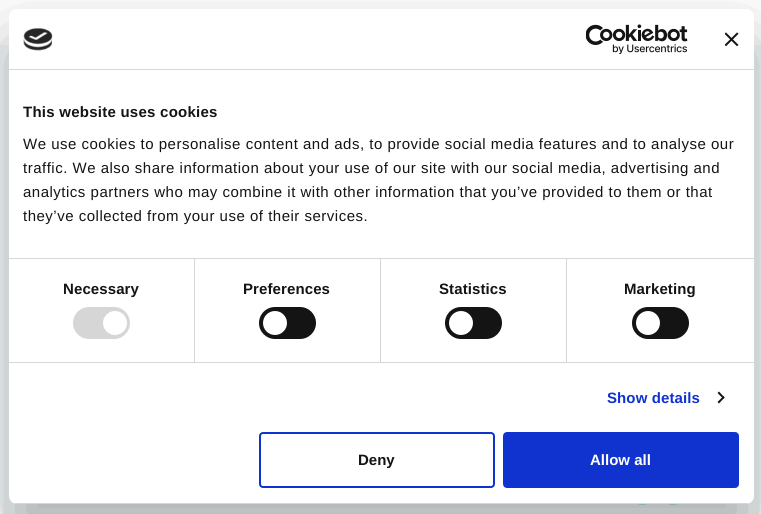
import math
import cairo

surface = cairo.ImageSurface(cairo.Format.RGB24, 761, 514)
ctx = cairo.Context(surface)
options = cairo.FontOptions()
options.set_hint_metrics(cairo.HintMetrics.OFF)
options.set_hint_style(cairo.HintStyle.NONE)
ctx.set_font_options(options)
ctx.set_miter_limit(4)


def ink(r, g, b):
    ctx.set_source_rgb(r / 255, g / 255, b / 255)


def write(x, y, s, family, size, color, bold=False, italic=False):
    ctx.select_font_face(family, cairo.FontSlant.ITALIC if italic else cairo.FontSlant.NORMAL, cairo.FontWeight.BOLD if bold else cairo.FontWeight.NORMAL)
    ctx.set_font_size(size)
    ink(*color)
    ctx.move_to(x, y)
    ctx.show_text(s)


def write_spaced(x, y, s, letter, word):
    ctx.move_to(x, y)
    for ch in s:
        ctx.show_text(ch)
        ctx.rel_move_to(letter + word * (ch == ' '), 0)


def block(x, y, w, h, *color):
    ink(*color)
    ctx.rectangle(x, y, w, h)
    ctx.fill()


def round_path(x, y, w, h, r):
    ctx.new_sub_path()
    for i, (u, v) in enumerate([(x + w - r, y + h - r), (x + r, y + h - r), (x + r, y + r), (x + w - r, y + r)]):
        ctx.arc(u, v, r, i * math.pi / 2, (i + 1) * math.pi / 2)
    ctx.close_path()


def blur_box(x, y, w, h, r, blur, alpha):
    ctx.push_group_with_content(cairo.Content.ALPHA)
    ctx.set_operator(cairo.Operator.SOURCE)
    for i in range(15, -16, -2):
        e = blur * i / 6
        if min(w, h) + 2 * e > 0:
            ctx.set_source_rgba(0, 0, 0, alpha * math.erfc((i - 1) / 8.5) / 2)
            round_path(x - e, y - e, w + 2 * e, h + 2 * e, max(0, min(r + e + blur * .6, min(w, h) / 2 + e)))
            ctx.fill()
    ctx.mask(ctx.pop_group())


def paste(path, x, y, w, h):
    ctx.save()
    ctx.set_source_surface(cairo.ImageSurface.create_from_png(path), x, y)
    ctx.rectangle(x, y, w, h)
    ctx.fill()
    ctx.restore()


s1 = dict(family="Liberation Sans", size=15, color=(20, 20, 20), bold=True)
s2 = dict(family="Liberation Sans", size=15, color=(255, 255, 255), bold=True)

ink(255, 255, 255)
ctx.paint()
ink(243, 249, 250)
round_path(0, -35, 761, 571, 35)
ctx.fill()
ink(231, 243, 244)
ctx.arc(642.5, 492.5, 12.5, 0, 2 * math.pi)
ctx.fill()
ctx.arc(642.5, 492.5, 11.5, 0, 2 * math.pi)
ctx.set_source_rgba(0.278, 0.745, 0.725, 0.28)
ctx.stroke()
ink(231, 243, 244)
round_path(661, 480, 24, 25, 12)
ctx.fill()
round_path(662, 481, 22, 23, 11)
ctx.set_source_rgba(0.278, 0.745, 0.725, 0.28)
ctx.stroke()
block(0, 0, 761, 45, 255, 255, 255)
ink(0, 0, 0)
blur_box(9, 41, 745, 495, 8, 34, 0.3)
ink(255, 255, 255)
round_path(9, 9, 745, 495, 8)
ctx.fill()
block(9, 69, 745, 1, 214, 214, 214)
paste("pic1.png", 23, 28, 30, 23)
paste("pic2.png", 586, 24, 102, 30)
paste("pic3.png", 725, 32, 14, 14)
block(9, 258, 745, 1, 214, 214, 214)
ctx.select_font_face("Liberation Sans", cairo.FontSlant.NORMAL, cairo.FontWeight.BOLD)
ctx.set_font_size(15)
ink(20, 20, 20)
write_spaced(23, 117, "This website uses cookies", 0.25, 0)
ctx.select_font_face("Liberation Sans")
write_spaced(23, 149, "We use cookies to personalise content and ads, to provide social media features and to analyse our", 0.5, 0)
write_spaced(23, 173, "traffic. We also share information about your use of our site with our social media, advertising and", 0.5, 0)
write_spaced(23, 197, "analytics partners who may combine it with other information that you’ve provided to them or that", 0.5, 0)
write_spaced(23, 221, "they’ve collected from your use of their services.", 0.5, 0)
block(9, 362, 745, 1, 214, 214, 214)
block(194, 259, 1, 103, 214, 214, 214)
ctx.select_font_face("Liberation Sans", cairo.FontSlant.NORMAL, cairo.FontWeight.BOLD)
ink(20, 20, 20)
write_spaced(63, 294, "Necessary", 0.1, 0)
ink(214, 214, 214)
round_path(73, 307, 57, 32, 16)
ctx.fill()
ink(255, 255, 255)
ctx.arc(115, 323, 12, 0, 2 * math.pi)
ctx.fill()
block(380, 259, 1, 103, 214, 214, 214)
ink(20, 20, 20)
write_spaced(243, 294, "Preferences", 0.1, 0)
round_path(259, 307, 57, 32, 16)
ctx.fill()
ink(255, 255, 255)
ctx.arc(275, 323, 12, 0, 2 * math.pi)
ctx.fill()
block(566, 259, 1, 103, 214, 214, 214)
ink(20, 20, 20)
write_spaced(439, 294, "Statistics", 0.1, 0)
round_path(445, 307, 57, 32, 16)
ctx.fill()
ink(255, 255, 255)
ctx.arc(461, 323, 12, 0, 2 * math.pi)
ctx.fill()
ink(20, 20, 20)
write_spaced(624, 294, "Marketing", 0.1, 0)
round_path(632, 307, 57, 32, 16)
ctx.fill()
ink(255, 255, 255)
ctx.arc(648, 323, 12, 0, 2 * math.pi)
ctx.fill()
ink(16, 50, 207)
write_spaced(607, 403, "Show details", 0.1, 0)
ink(20, 20, 20)
ctx.new_path()
ctx.move_to(719, 391.5)
ctx.line_to(724.5, 397.5)
ctx.line_to(723.5, 399)
ctx.line_to(717.5, 393)
ctx.close_path()
ctx.fill()
ctx.new_path()
ctx.move_to(723.5, 396)
ctx.line_to(724.5, 397.5)
ctx.line_to(719, 403.5)
ctx.line_to(717.5, 402)
ctx.close_path()
ctx.fill()
ctx.save()
round_path(9, 9, 745, 495, 8)
ctx.clip()
block(9, 503, 745, 1, 214, 214, 214)
ctx.restore()
round_path(260, 433, 234, 54, 3)
ink(16, 50, 207)
ctx.stroke()
write(358, 465, "Deny", **s1)
ink(16, 50, 207)
round_path(504, 433, 234, 54, 3)
ctx.fill_preserve()
ctx.stroke()
write(590, 465, "Allow all", **s2)
surface.write_to_png("screenshot.png")
